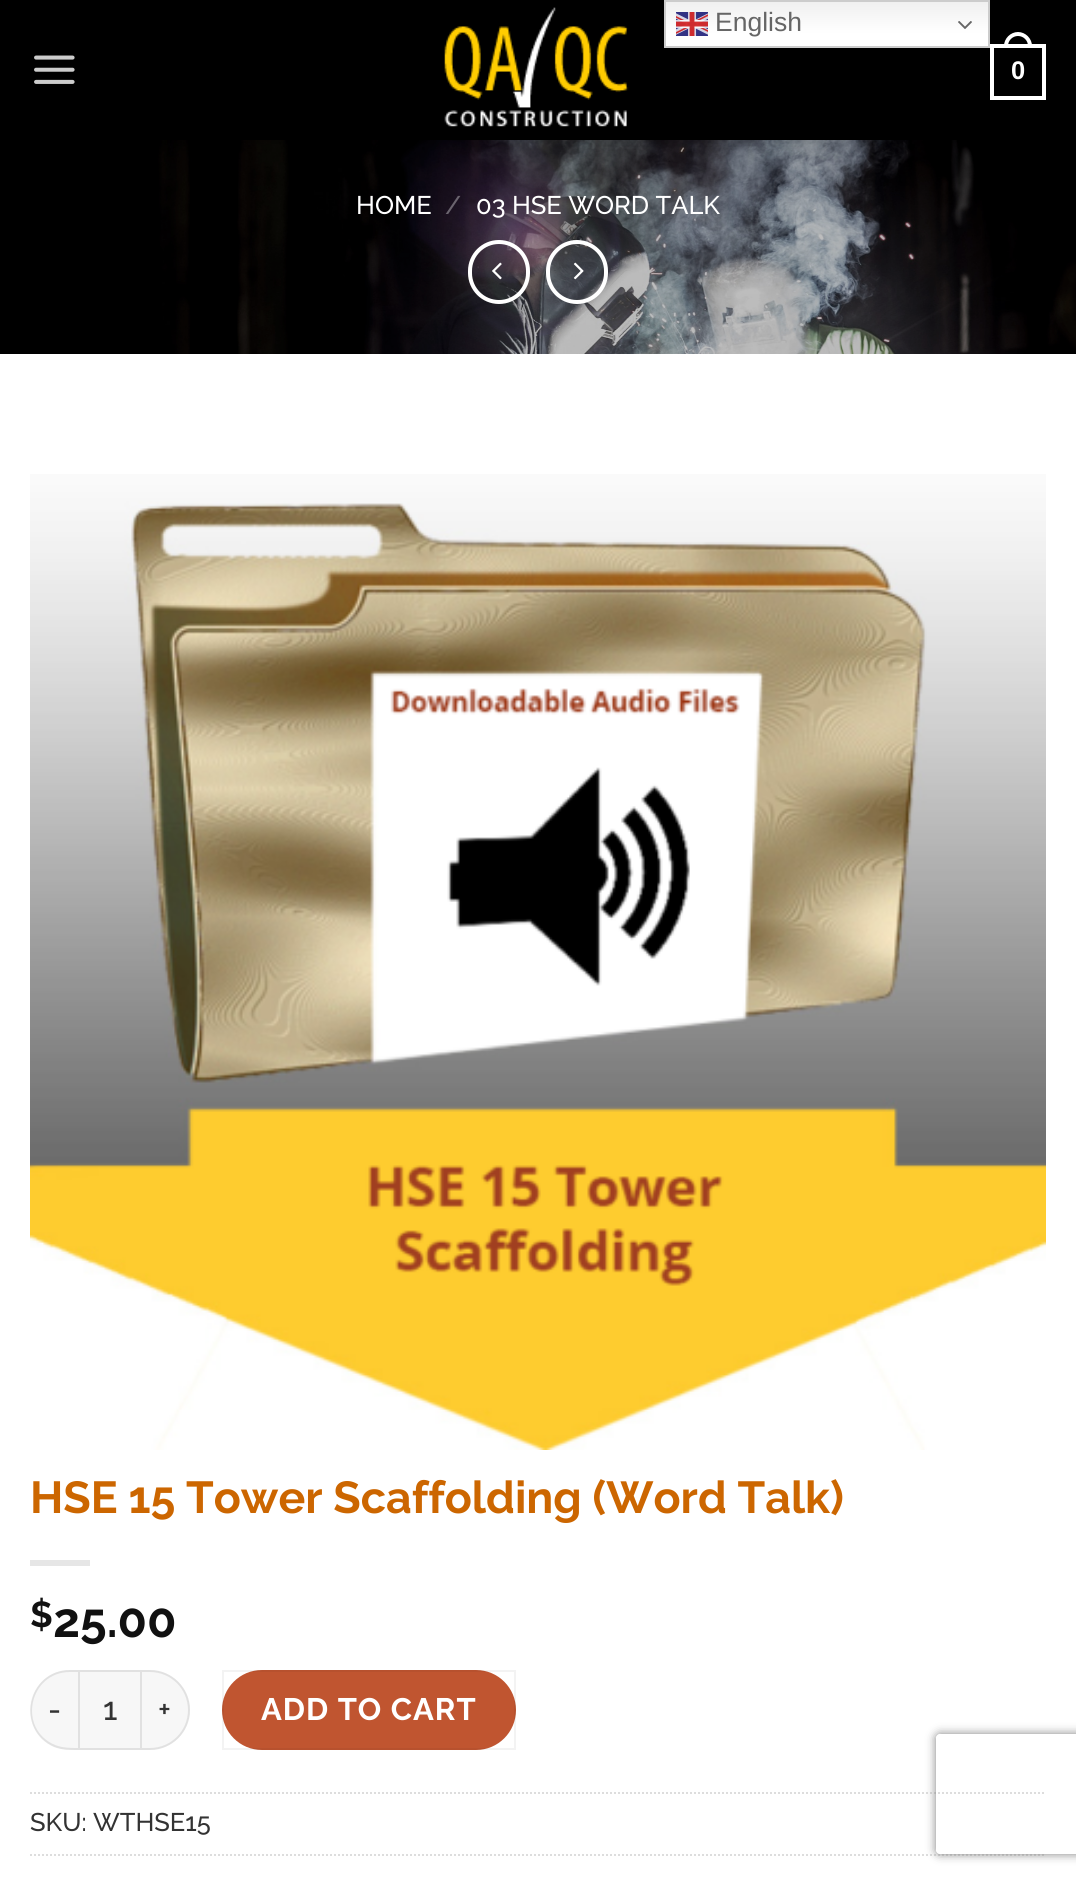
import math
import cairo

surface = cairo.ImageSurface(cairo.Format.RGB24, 1076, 1882)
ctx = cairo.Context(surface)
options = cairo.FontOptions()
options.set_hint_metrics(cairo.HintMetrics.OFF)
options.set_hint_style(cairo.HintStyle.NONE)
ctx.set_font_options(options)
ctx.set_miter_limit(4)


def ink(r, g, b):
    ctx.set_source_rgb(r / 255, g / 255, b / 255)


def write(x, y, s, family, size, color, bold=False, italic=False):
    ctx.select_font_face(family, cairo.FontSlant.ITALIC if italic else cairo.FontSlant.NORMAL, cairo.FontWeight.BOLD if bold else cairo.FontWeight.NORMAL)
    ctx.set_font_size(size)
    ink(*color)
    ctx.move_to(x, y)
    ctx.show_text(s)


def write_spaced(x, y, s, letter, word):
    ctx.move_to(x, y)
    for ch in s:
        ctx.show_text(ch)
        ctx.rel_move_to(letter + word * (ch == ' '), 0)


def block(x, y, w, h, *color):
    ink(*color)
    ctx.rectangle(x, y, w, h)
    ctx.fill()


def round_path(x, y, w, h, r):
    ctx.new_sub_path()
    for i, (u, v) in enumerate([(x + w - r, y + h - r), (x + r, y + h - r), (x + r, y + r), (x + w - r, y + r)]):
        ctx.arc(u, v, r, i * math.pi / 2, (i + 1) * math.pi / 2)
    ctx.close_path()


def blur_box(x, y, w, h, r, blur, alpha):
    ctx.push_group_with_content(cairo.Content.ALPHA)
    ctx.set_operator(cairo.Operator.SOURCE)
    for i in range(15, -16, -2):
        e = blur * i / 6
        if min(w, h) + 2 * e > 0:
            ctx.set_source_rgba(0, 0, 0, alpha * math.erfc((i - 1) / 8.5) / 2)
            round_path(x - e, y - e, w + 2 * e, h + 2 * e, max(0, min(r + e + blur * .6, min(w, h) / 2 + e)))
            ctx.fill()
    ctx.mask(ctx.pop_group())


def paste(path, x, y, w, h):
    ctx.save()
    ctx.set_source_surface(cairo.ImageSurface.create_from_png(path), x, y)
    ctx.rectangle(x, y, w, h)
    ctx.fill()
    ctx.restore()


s1 = dict(family="Liberation Sans", size=26.5, color=(102, 102, 102))
s2 = dict(family="Liberation Sans", size=25.5, color=(255, 255, 255), bold=True)
s3 = dict(family="Raleway Medium", size=25.5, color=(255, 255, 255))
s4 = dict(family="Raleway Medium", size=25.5, color=(106, 100, 110))
s5 = dict(family="Raleway", size=44.75, color=(204, 102, 0), bold=True)
s6 = dict(family="Raleway", size=36, color=(17, 17, 17), bold=True)
s7 = dict(family="Raleway", size=48, color=(17, 17, 17), bold=True)
s8 = dict(family="Raleway Medium", size=32, color=(51, 51, 51))
s9 = dict(family="Raleway Medium", size=25.5, color=(51, 51, 51))

ink(255, 255, 255)
ctx.paint()
paste("pic5.png", 0, 140, 1076, 214)
ink(0, 0, 0)
blur_box(2, 2, 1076, 140, 0, 10, 0.15)
block(0, 0, 1076, 140, 0, 0, 0)
gradient = cairo.LinearGradient(827, 0, 827, 48)
gradient.add_color_stop_rgba(0, 0.937, 0.937, 0.937, 1)
gradient.add_color_stop_rgba(0.7, 1, 1, 1, 1)
ctx.set_source(gradient)
ctx.rectangle(666, 2, 322, 44)
ctx.fill()
ctx.rectangle(665, 1, 324, 46)
ink(204, 204, 204)
ctx.stroke()
paste("pic1.png", 676, 12, 32, 24)
write(715, 31, "English", **s1)
paste("pic2.png", 958, 21, 14, 8)
paste("pic3.png", 34, 55, 41, 29)
paste("pic4.png", 444, 7, 185, 120)
ctx.rectangle(992, 46, 52, 52)
ink(255, 255, 255)
ctx.set_line_width(4)
ctx.stroke()
ctx.set_fill_rule(cairo.FillRule.EVEN_ODD)
ctx.new_path()
ctx.move_to(1018, 32)
ctx.curve_to(1025.5, 32, 1032, 38.5, 1032, 46)
ctx.line_to(1032, 48)
ctx.line_to(1004, 48)
ctx.line_to(1004, 46)
ctx.curve_to(1004, 38.5, 1010.5, 32, 1018, 32)
ctx.close_path()
ctx.move_to(1018, 36)
ctx.curve_to(1023.5, 36, 1028, 40.5, 1028, 46)
ctx.line_to(1028, 48)
ctx.line_to(1008, 48)
ctx.line_to(1008, 46)
ctx.curve_to(1008, 40.5, 1012.5, 36, 1018, 36)
ctx.close_path()
ctx.fill()
write(1011, 79, "0", **s2)
write(356, 214, "HOME", **s3)
write(445, 214, "/", **s4)
write(476, 214, "03 HSE WORD TALK", **s3)
round_path(470, 242, 58, 60, 29)
ctx.stroke()
paste("pic6.png", 492, 262, 10, 18)
round_path(548, 242, 58, 60, 29)
ctx.stroke()
paste("pic7.png", 573, 262, 11, 18)
paste("pic8.png", 30, 474, 1016, 976)
write(30, 1513, "HSE 15 Tower Scaffolding (Word Talk)", **s5)
block(30, 1560, 60, 6, 230, 230, 230)
write(30, 1627, "$", **s6)
write(53, 1637, "25.00", **s7)
ink(247, 247, 247)
ctx.new_path()
ctx.move_to(70, 1670)
ctx.line_to(78, 1670)
ctx.line_to(78, 1750)
ctx.line_to(70, 1750)
ctx.curve_to(48, 1750, 30, 1732, 30, 1710)
ctx.curve_to(30, 1688, 48, 1670, 70, 1670)
ctx.close_path()
ctx.fill()
ctx.set_source_rgba(0, 0, 0, 0.09)
ctx.new_path()
ctx.move_to(70, 1670)
ctx.line_to(78, 1670)
ctx.line_to(78, 1750)
ctx.curve_to(70, 1750, 62, 1750, 54, 1747)
ctx.curve_to(15, 1730, 27, 1670, 70, 1670)
ctx.close_path()
ctx.move_to(70, 1672)
ctx.line_to(78, 1672)
ctx.line_to(78, 1748)
ctx.curve_to(70, 1748, 63, 1748, 55, 1745)
ctx.curve_to(17, 1729, 29, 1672, 70, 1672)
ctx.close_path()
ctx.fill()
ctx.select_font_face("Raleway Medium")
ctx.set_font_size(31)
ink(51, 51, 51)
write_spaced(48, 1720, "-", 1, 0)
ink(247, 247, 247)
ctx.rectangle(79, 1671, 62, 78)
ctx.fill_preserve()
ink(225, 225, 225)
ctx.set_line_width(2)
ctx.stroke()
write(103, 1720, "1", **s8)
ink(247, 247, 247)
ctx.new_path()
ctx.move_to(142, 1670)
ctx.line_to(150, 1670)
ctx.curve_to(172, 1670, 190, 1688, 190, 1710)
ctx.curve_to(190, 1732, 172, 1750, 150, 1750)
ctx.line_to(142, 1750)
ctx.close_path()
ctx.fill()
ctx.set_source_rgba(0, 0, 0, 0.09)
ctx.new_path()
ctx.move_to(142, 1670)
ctx.line_to(150, 1670)
ctx.curve_to(172, 1670, 190, 1688, 190, 1710)
ctx.curve_to(190, 1732, 172, 1750, 150, 1750)
ctx.line_to(142, 1750)
ctx.close_path()
ctx.move_to(142, 1672)
ctx.line_to(150, 1672)
ctx.curve_to(171, 1672, 188, 1689, 188, 1710)
ctx.curve_to(188, 1731, 171, 1748, 150, 1748)
ctx.line_to(142, 1748)
ctx.close_path()
ctx.fill()
ctx.set_font_size(31)
ink(51, 51, 51)
write_spaced(158, 1720, "+", 1, 0)
ink(192, 85, 48)
round_path(222, 1670, 294, 80, 40)
ctx.fill()
ctx.rectangle(223, 1671, 292, 78)
ctx.set_source_rgba(0, 0, 0, 0.05)
ctx.stroke()
ctx.select_font_face("Raleway", cairo.FontSlant.NORMAL, cairo.FontWeight.BOLD)
ink(255, 255, 255)
write_spaced(261, 1720, "ADD TO CART", 1, 0)
ctx.new_path()
ctx.move_to(30, 1793)
ctx.line_to(1046, 1793)
ink(221, 221, 221)
ctx.set_dash([2, 2])
ctx.stroke()
write(30, 1831, "SKU: WTHSE15", **s9)
ctx.new_path()
ctx.move_to(30, 1855)
ctx.line_to(1046, 1855)
ink(221, 221, 221)
ctx.stroke()
ctx.save()
ctx.new_path()
ctx.move_to(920, 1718)
ctx.line_to(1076, 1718)
ctx.line_to(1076, 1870)
ctx.line_to(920, 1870)
ctx.close_path()
ctx.move_to(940, 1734)
ctx.line_to(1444, 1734)
ctx.curve_to(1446, 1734, 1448, 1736, 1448, 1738)
ctx.line_to(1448, 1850)
ctx.curve_to(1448, 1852, 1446, 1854, 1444, 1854)
ctx.line_to(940, 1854)
ctx.curve_to(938, 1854, 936, 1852, 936, 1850)
ctx.line_to(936, 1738)
ctx.curve_to(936, 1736, 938, 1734, 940, 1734)
ctx.close_path()
ctx.clip()
ink(128, 128, 128)
blur_box(936, 1734, 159, 120, 4, 5, 1)
ctx.restore()
surface.write_to_png("screenshot.png")
